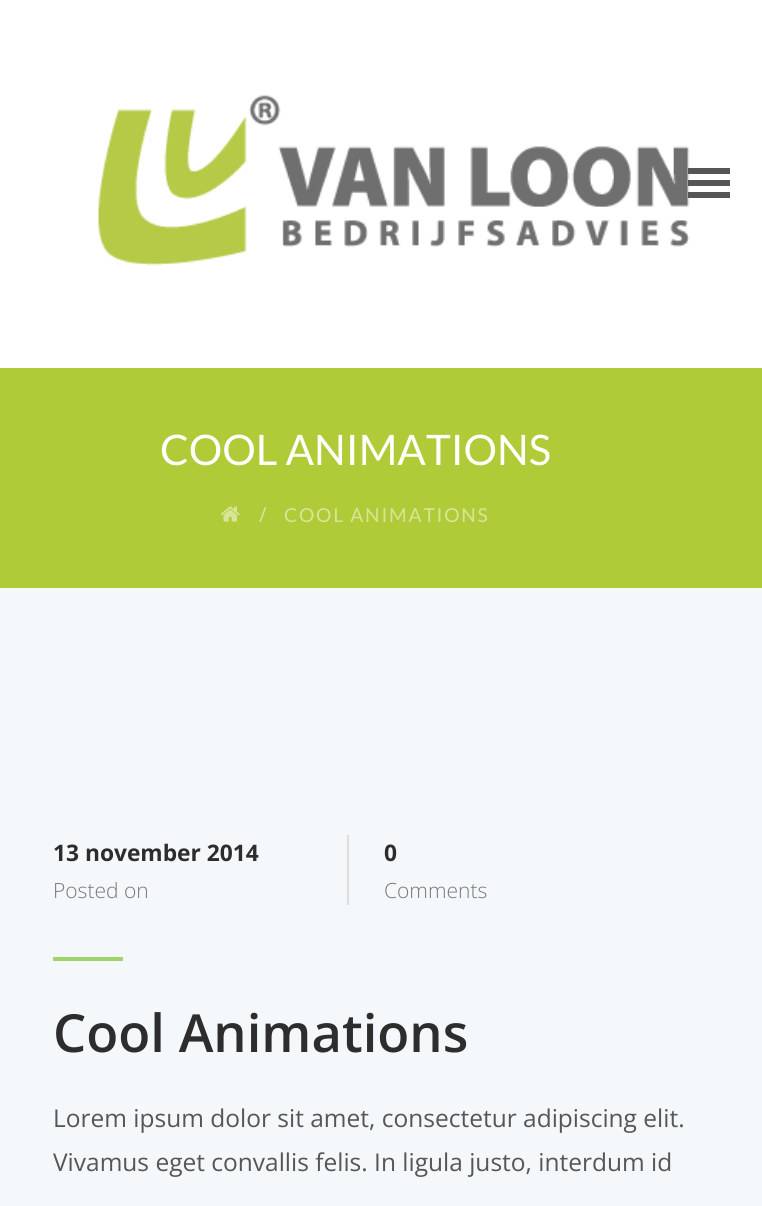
import math
import cairo

surface = cairo.ImageSurface(cairo.Format.RGB24, 762, 1206)
ctx = cairo.Context(surface)
options = cairo.FontOptions()
options.set_hint_metrics(cairo.HintMetrics.OFF)
options.set_hint_style(cairo.HintStyle.NONE)
ctx.set_font_options(options)
ctx.set_miter_limit(4)


def ink(r, g, b):
    ctx.set_source_rgb(r / 255, g / 255, b / 255)


def write(x, y, s, family, size, color, bold=False, italic=False):
    ctx.select_font_face(family, cairo.FontSlant.ITALIC if italic else cairo.FontSlant.NORMAL, cairo.FontWeight.BOLD if bold else cairo.FontWeight.NORMAL)
    ctx.set_font_size(size)
    ink(*color)
    ctx.move_to(x, y)
    ctx.show_text(s)


def write_spaced(x, y, s, letter, word):
    ctx.move_to(x, y)
    for ch in s:
        ctx.show_text(ch)
        ctx.rel_move_to(letter + word * (ch == ' '), 0)


def block(x, y, w, h, *color):
    ink(*color)
    ctx.rectangle(x, y, w, h)
    ctx.fill()


def paste(path, x, y, w, h):
    ctx.save()
    ctx.set_source_surface(cairo.ImageSurface.create_from_png(path), x, y)
    ctx.rectangle(x, y, w, h)
    ctx.fill()
    ctx.restore()


s1 = dict(family="Lato", size=42, color=(255, 255, 255))
s2 = dict(family="Open Sans", size=21, color=(215, 229, 155))
s3 = dict(family="Open Sans", size=22.75, color=(45, 45, 45), bold=True)
s4 = dict(family="Open Sans Light", size=21, color=(119, 119, 119))
s5 = dict(family="Open Sans SemiBold", size=52.5, color=(45, 45, 45))
s6 = dict(family="Open Sans", size=24.5, color=(86, 86, 86))

ink(255, 255, 255)
ctx.paint()
paste("pic1.png", 98, 95, 592, 171)
ink(86, 86, 86)
ctx.new_path()
ctx.move_to(688, 168)
ctx.line_to(688, 174)
ctx.line_to(730, 174)
ctx.line_to(730, 168)
ctx.close_path()
ctx.move_to(688, 186)
ctx.line_to(730, 186)
ctx.line_to(730, 180)
ctx.line_to(688, 180)
ctx.close_path()
ctx.move_to(688, 198)
ctx.line_to(730, 198)
ctx.line_to(730, 192)
ctx.line_to(688, 192)
ctx.close_path()
ctx.fill()
block(0, 588, 762, 618, 245, 248, 250)
block(0, 368, 762, 220, 175, 203, 55)
write(160, 465, "COOL ANIMATIONS", **s1)
paste("pic2.png", 220, 506, 20, 16)
write(259, 522, "/", **s2)
ctx.select_font_face("Lato")
ctx.set_font_size(19.25)
write_spaced(284, 522, "COOL ANIMATIONS", 1.75, 0)
write(53, 861, "13 november 2014", **s3)
block(347, 835, 2, 70, 222, 222, 220)
write(53, 898, "Posted on", **s4)
write(384, 861, "0", **s3)
write(384, 898, "Comments", **s4)
block(53, 957, 70, 4, 160, 212, 104)
write(53, 1052, "Cool Animations", **s5)
write(53, 1127, "Lorem ipsum dolor sit amet, consectetur adipiscing elit.", **s6)
write(53, 1171, "Vivamus eget convallis felis. In ligula justo, interdum id", **s6)
surface.write_to_png("screenshot.png")
